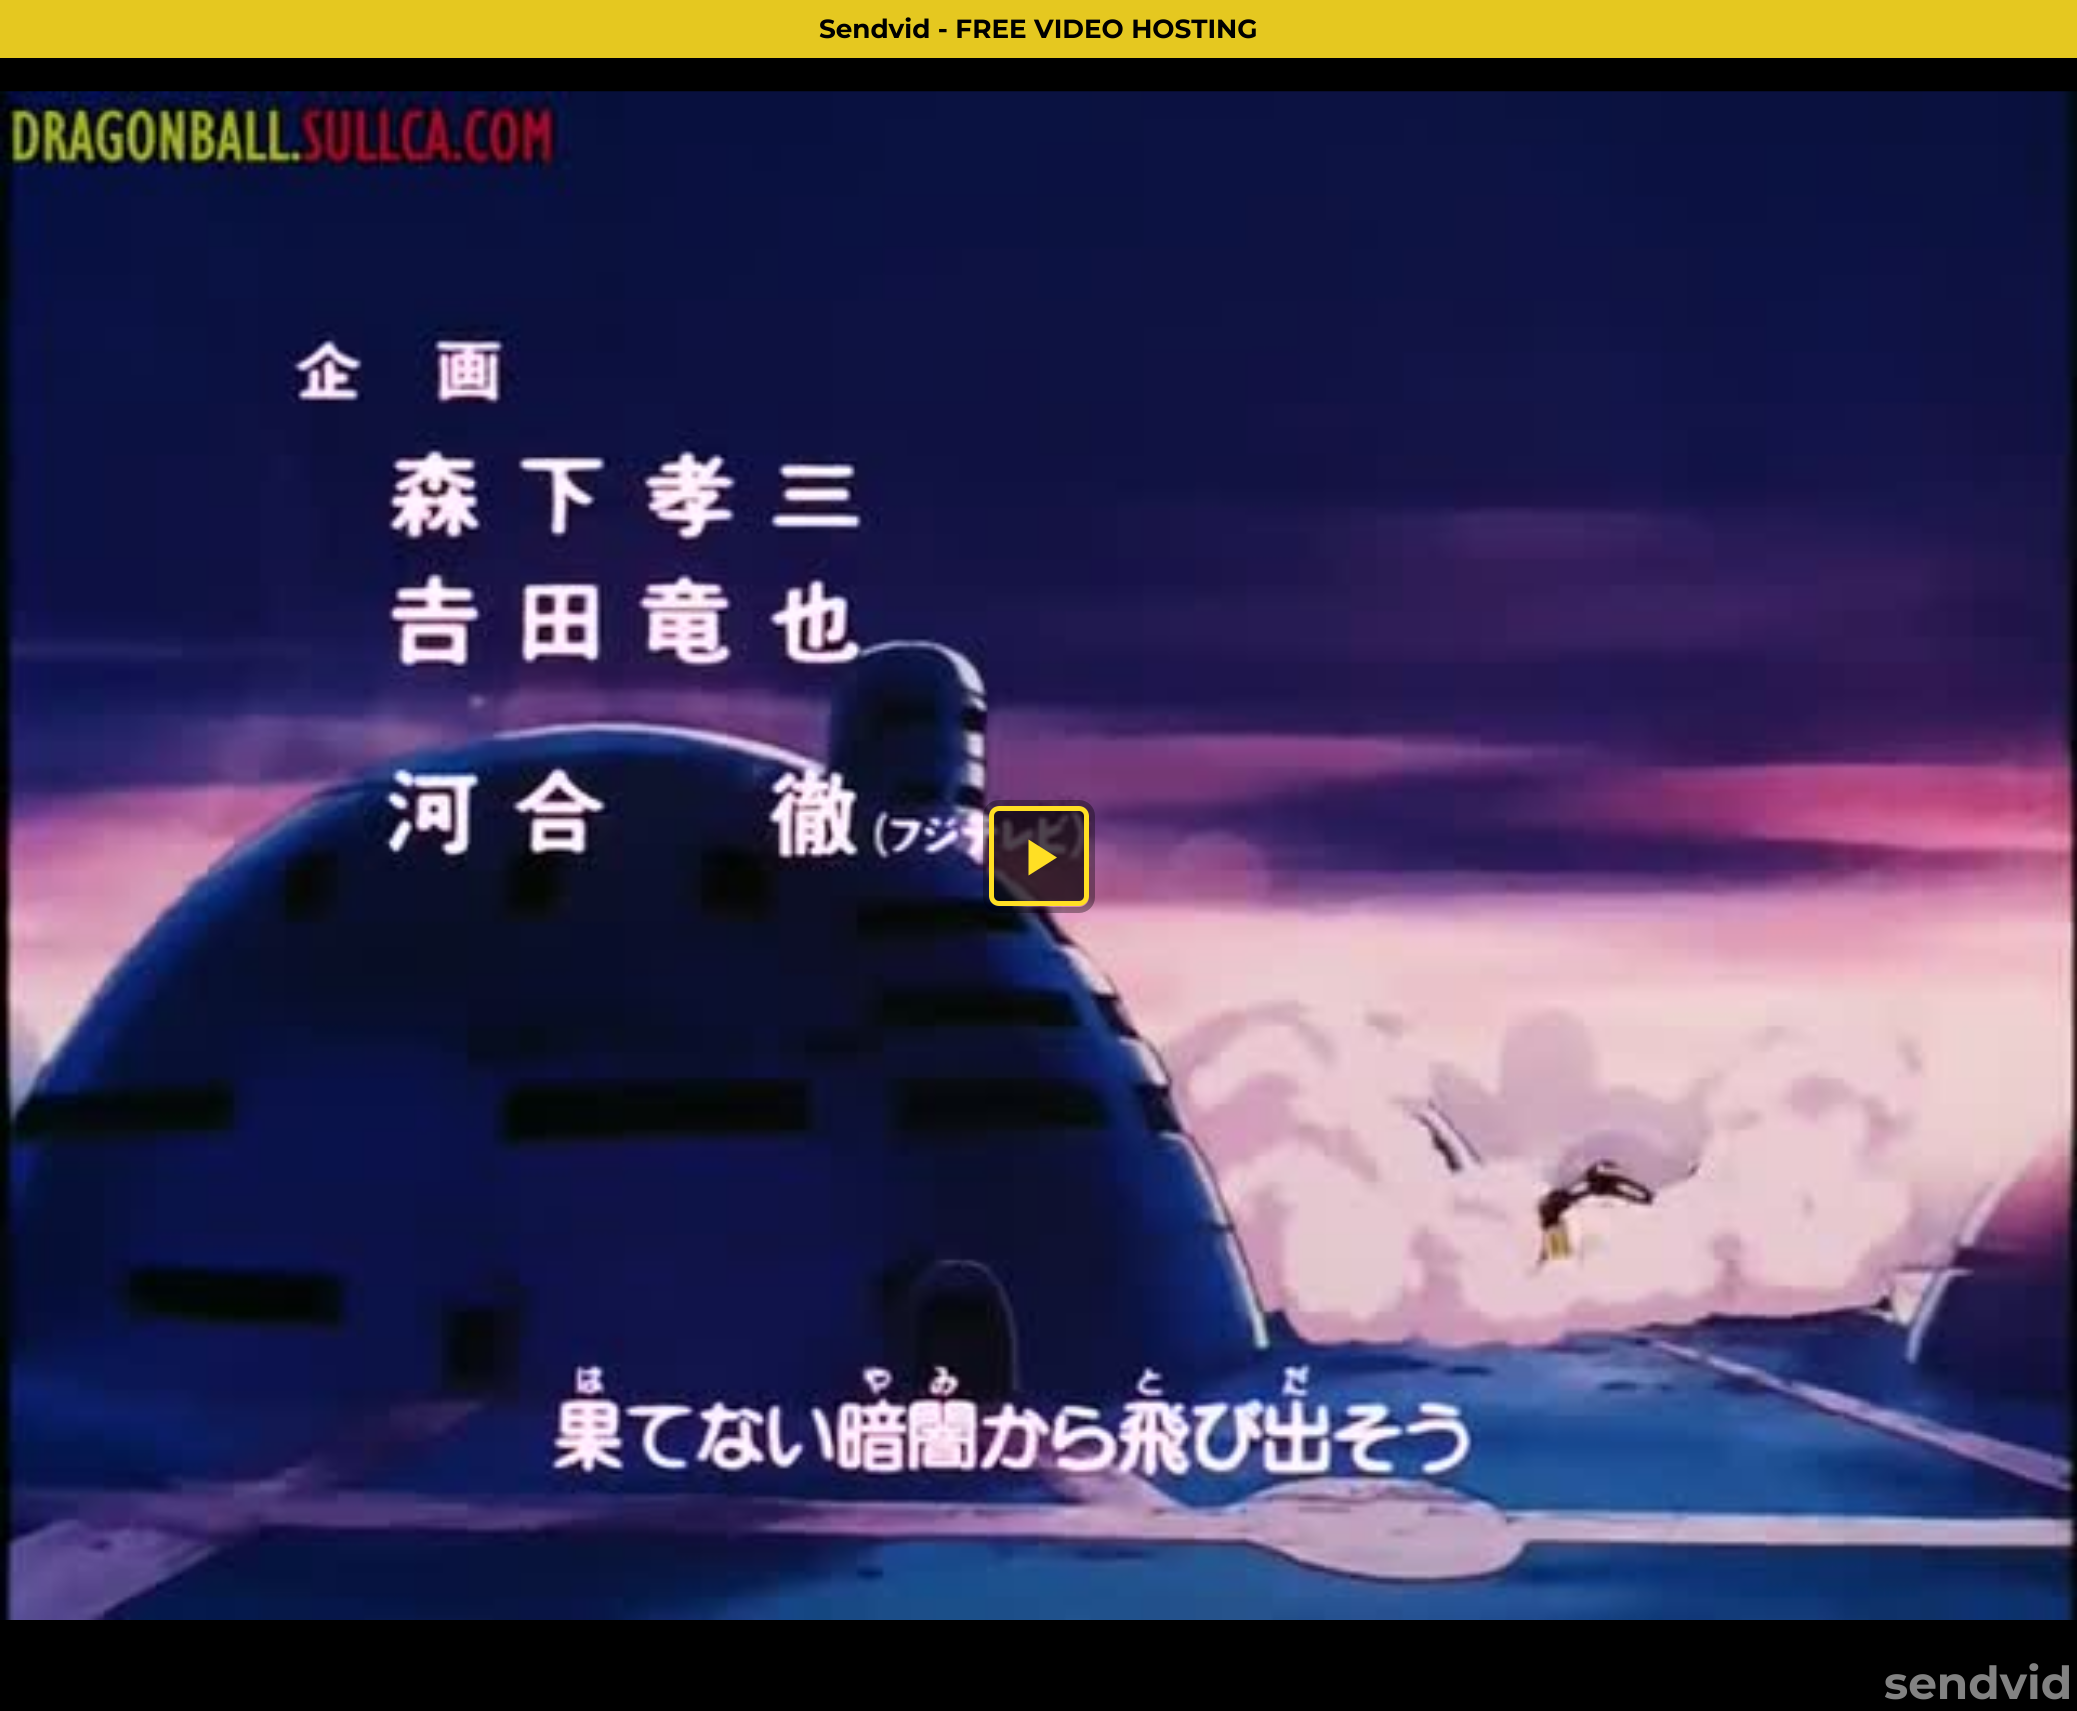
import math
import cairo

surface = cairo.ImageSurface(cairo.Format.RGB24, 2077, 1711)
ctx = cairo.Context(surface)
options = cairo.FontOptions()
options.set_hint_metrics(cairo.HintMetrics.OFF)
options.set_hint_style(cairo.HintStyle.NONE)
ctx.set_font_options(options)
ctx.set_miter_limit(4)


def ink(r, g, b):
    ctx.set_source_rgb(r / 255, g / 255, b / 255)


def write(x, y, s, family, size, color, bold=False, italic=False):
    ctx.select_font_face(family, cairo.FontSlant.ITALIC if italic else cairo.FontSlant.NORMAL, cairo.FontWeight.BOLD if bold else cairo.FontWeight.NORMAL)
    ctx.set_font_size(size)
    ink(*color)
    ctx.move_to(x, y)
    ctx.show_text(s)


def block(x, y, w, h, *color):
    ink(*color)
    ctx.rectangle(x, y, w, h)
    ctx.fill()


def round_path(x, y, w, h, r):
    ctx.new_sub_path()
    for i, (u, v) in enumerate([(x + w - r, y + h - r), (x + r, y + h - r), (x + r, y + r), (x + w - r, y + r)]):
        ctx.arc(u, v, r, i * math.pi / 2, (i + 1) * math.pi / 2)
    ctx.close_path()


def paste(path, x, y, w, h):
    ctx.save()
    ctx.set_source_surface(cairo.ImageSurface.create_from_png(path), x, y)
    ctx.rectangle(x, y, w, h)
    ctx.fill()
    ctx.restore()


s1 = dict(family="Montserrat", size=26.25, color=(0, 0, 0), bold=True)
s2 = dict(family="Montserrat", size=45.5, color=(130, 130, 130), bold=True)

ink(0, 0, 0)
ctx.paint()
block(0, 0, 2077, 58, 229, 200, 32)
write(819, 38, "Sendvid - FREE VIDEO HOSTING", **s1)
paste("pic1.png", 0, 91, 2077, 1529)
ctx.set_source_rgba(0, 0, 0, 0.7)
round_path(991.5, 808.5, 95, 95, 7.5)
ctx.fill_preserve()
ink(255, 223, 36)
ctx.set_line_width(5)
ctx.stroke()
round_path(986, 803, 106, 107, 13)
ctx.set_source_rgba(0, 0, 0, 0.35)
ctx.set_line_width(6)
ctx.stroke()
ink(255, 223, 36)
ctx.new_path()
ctx.move_to(1028.5, 839.5)
ctx.line_to(1028.5, 875.5)
ctx.line_to(1057, 857.5)
ctx.close_path()
ctx.fill()
write(1884, 1699, "sendvid", **s2)
surface.write_to_png("screenshot.png")
